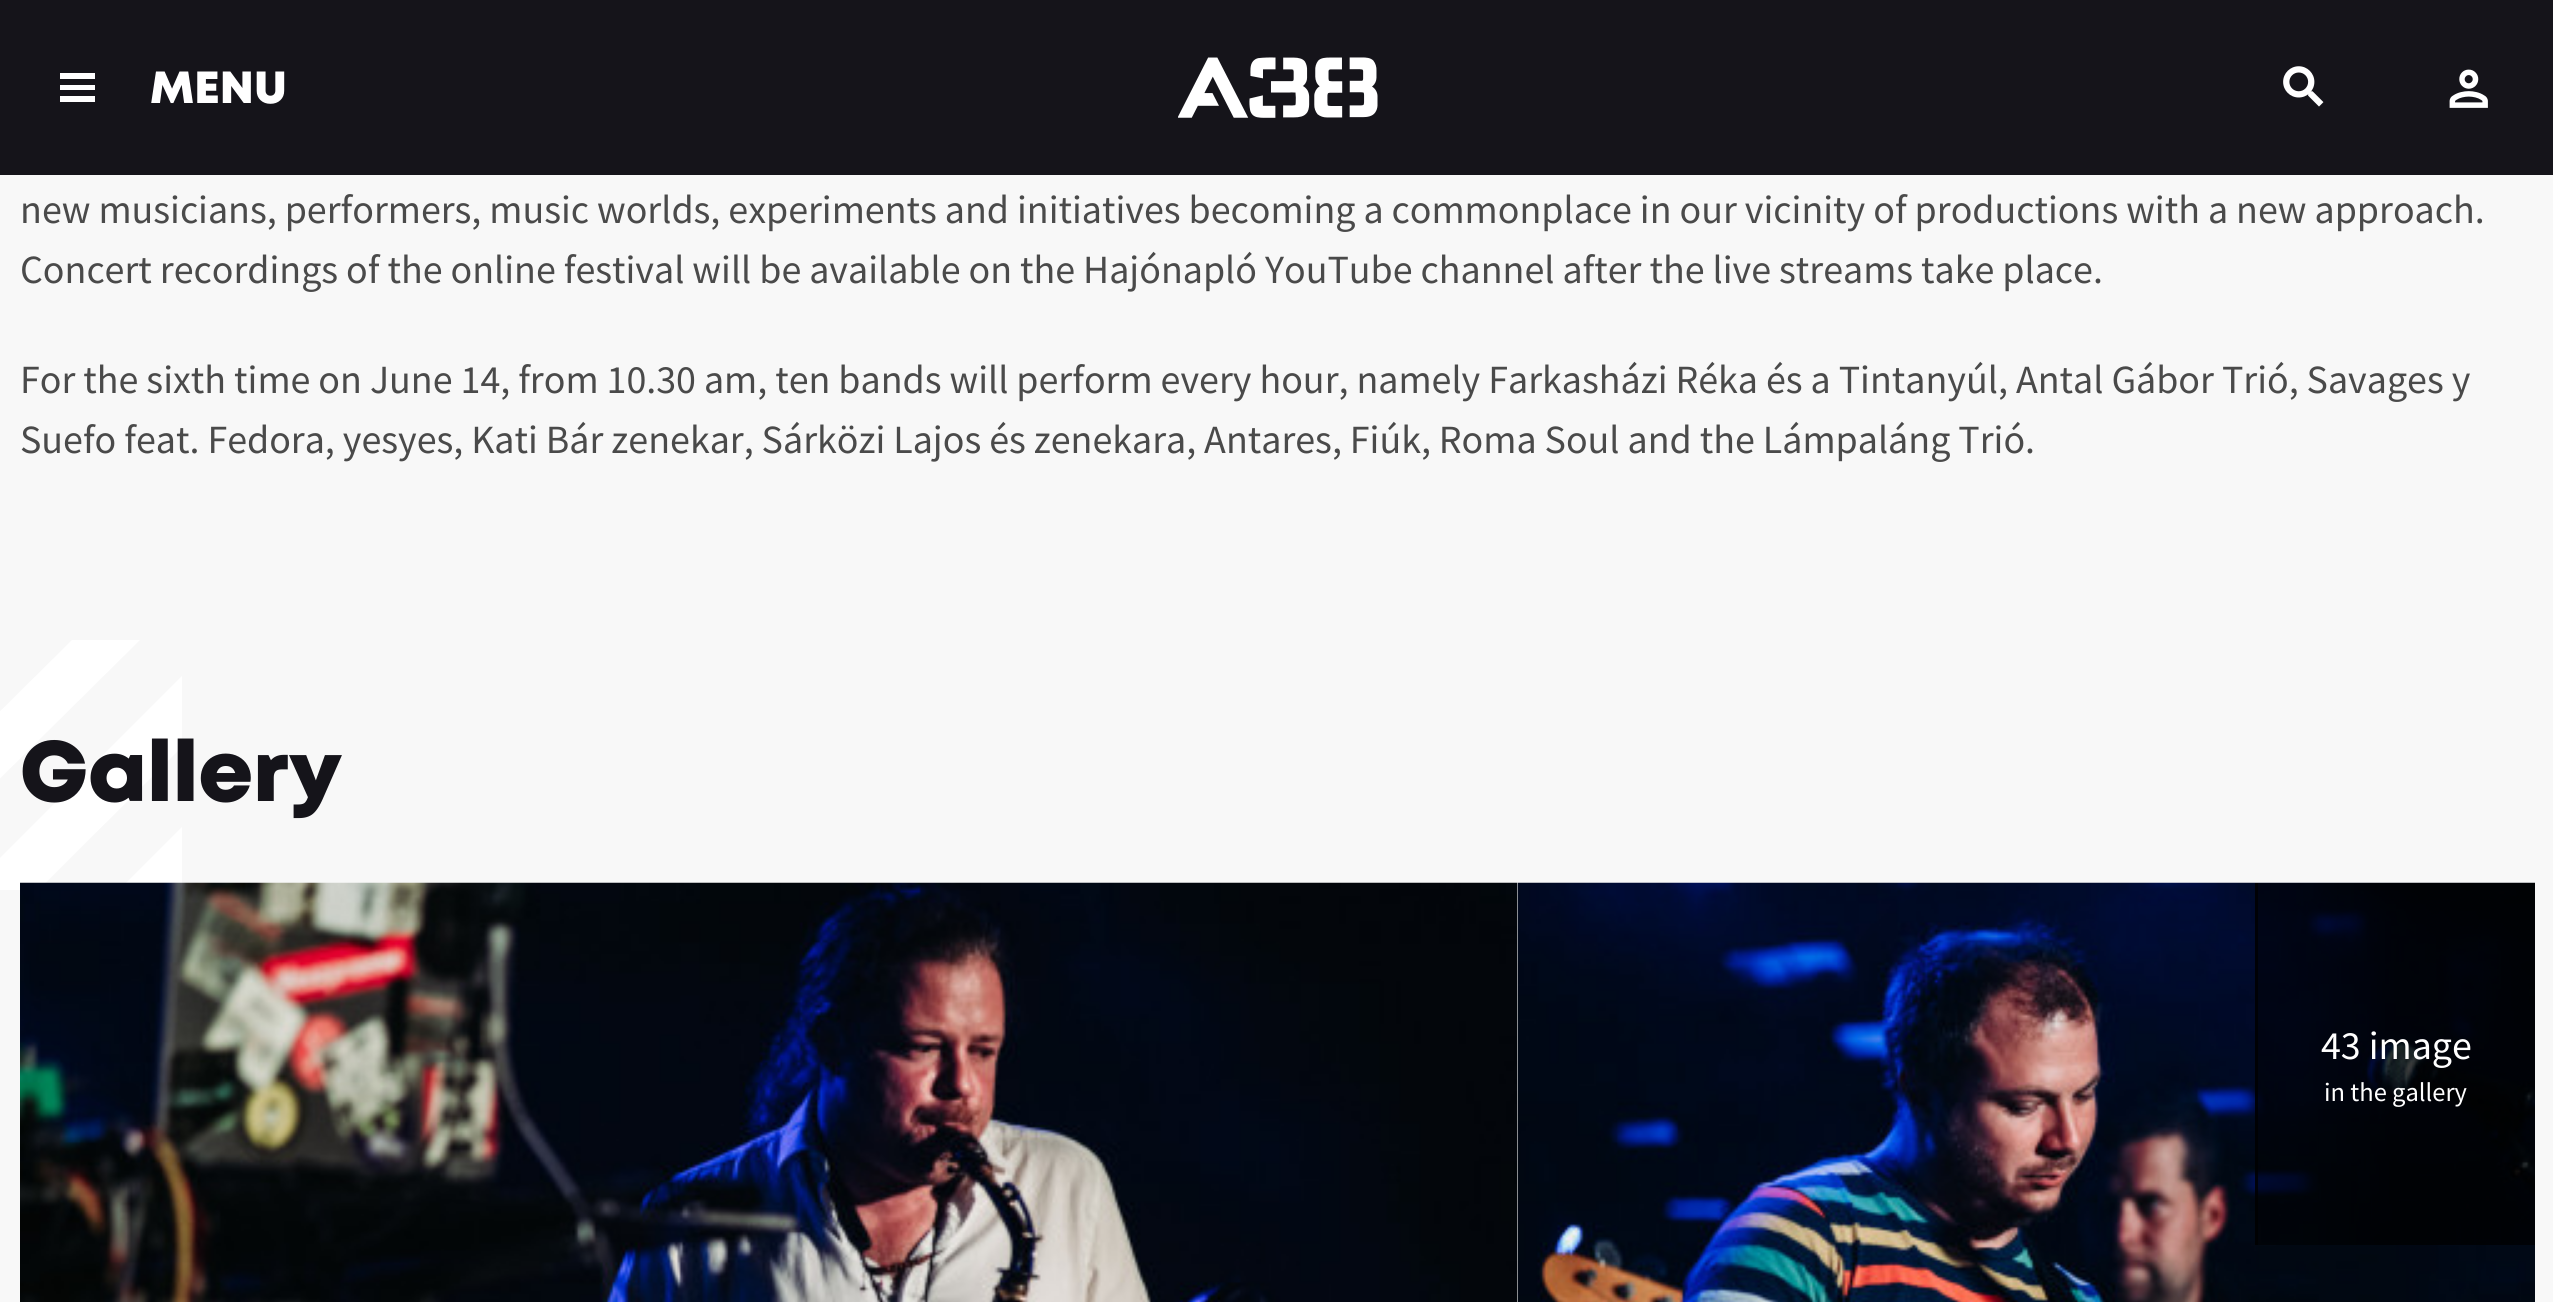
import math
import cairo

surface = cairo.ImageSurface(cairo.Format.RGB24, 2553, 1302)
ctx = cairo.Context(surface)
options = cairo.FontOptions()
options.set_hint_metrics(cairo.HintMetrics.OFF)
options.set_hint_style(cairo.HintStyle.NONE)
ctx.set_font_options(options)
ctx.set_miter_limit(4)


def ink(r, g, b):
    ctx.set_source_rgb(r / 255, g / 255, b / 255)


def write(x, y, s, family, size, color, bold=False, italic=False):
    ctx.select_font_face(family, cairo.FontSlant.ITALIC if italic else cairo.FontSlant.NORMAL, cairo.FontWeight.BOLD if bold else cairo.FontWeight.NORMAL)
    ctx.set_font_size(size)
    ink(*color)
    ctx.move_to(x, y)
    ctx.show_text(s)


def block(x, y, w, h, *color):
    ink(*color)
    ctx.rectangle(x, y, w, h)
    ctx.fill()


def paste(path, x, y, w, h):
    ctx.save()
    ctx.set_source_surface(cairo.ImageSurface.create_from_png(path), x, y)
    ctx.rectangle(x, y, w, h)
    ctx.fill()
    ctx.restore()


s1 = dict(family="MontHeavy", size=45, color=(255, 255, 255))
s2 = dict(family="Source Sans Pro", size=40, color=(74, 74, 74))
s3 = dict(family="MontHeavy", size=85, color=(21, 20, 26))
s4 = dict(family="Source Sans Pro", size=40, color=(255, 255, 255))
s5 = dict(family="Source Sans Pro", size=26.5, color=(255, 255, 255))

ink(248, 248, 248)
ctx.paint()
block(0, 0, 2553, 175, 21, 20, 26)
block(60, 73, 35, 6, 255, 255, 255)
block(60, 85, 35, 5, 255, 255, 255)
block(60, 96, 35, 6, 255, 255, 255)
write(150, 103, "MENU", **s1)
paste("pic1.png", 1178, 57, 200, 61)
paste("pic2.png", 2283, 66, 41, 41)
paste("pic3.png", 2449, 69, 39, 39)
write(20, 223, "new musicians, performers, music worlds, experiments and initiatives becoming a commonplace in our vicinity of productions with a new approach.", **s2)
write(20, 283, "Concert recordings of the online festival will be available on the Hajónapló YouTube channel after the live streams take place.", **s2)
write(20, 393, "For the sixth time on June 14, from 10.30 am, ten bands will perform every hour, namely Farkasházi Réka és a Tintanyúl, Antal Gábor Trió, Savages y", **s2)
write(20, 453, "Suefo feat. Fedora, yesyes, Kati Bár zenekar, Sárközi Lajos és zenekara, Antares, Fiúk, Roma Soul and the Lámpaláng Trió.", **s2)
ctx.save()
ctx.rectangle(0, 640, 183, 250)
ctx.clip()
ink(255, 255, 255)
ctx.new_path()
ctx.move_to(-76, 640)
ctx.line_to(-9, 640)
ctx.line_to(-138, 768)
ctx.line_to(-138, 699)
ctx.close_path()
ctx.move_to(182, 747)
ctx.line_to(-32, 960)
ctx.line_to(-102, 960)
ctx.line_to(182, 676)
ctx.close_path()
ctx.move_to(140, 640)
ctx.line_to(-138, 915)
ctx.line_to(-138, 848)
ctx.line_to(72, 640)
ctx.close_path()
ctx.move_to(182, 898)
ctx.line_to(120, 960)
ctx.line_to(49, 960)
ctx.line_to(182, 827)
ctx.close_path()
ctx.fill()
ctx.restore()
write(20, 801, "Gallery", **s3)
paste("pic4.png", 20, 882, 1498, 420)
paste("pic5.png", 1517, 882, 1018, 420)
ctx.set_source_rgba(0, 0, 0, 0.5)
ctx.rectangle(2255, 883, 3, 362)
ctx.fill()
write(2321, 1059, "43 image", **s4)
write(2324, 1101, "in the gallery", **s5)
surface.write_to_png("screenshot.png")
